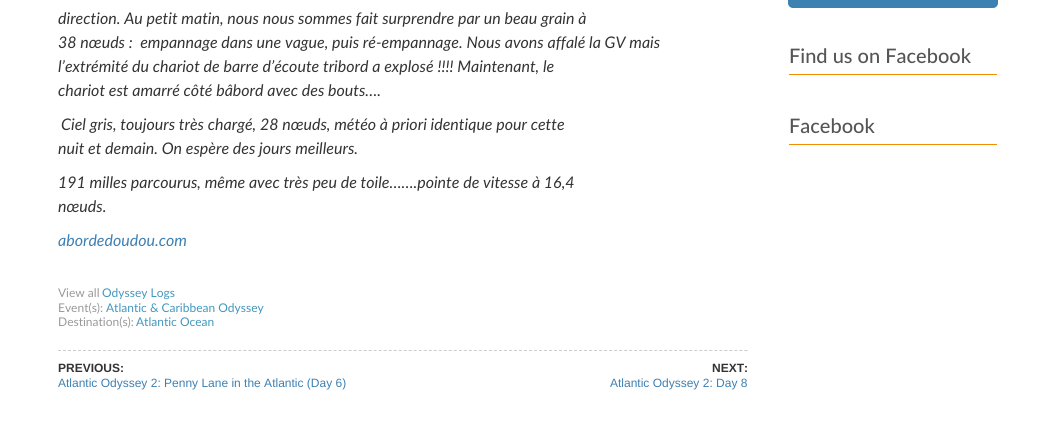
import math
import cairo

surface = cairo.ImageSurface(cairo.Format.RGB24, 1052, 429)
ctx = cairo.Context(surface)
options = cairo.FontOptions()
options.set_hint_metrics(cairo.HintMetrics.OFF)
options.set_hint_style(cairo.HintStyle.NONE)
ctx.set_font_options(options)
ctx.set_miter_limit(4)


def ink(r, g, b):
    ctx.set_source_rgb(r / 255, g / 255, b / 255)


def write(x, y, s, family, size, color, bold=False, italic=False):
    ctx.select_font_face(family, cairo.FontSlant.ITALIC if italic else cairo.FontSlant.NORMAL, cairo.FontWeight.BOLD if bold else cairo.FontWeight.NORMAL)
    ctx.set_font_size(size)
    ink(*color)
    ctx.move_to(x, y)
    ctx.show_text(s)


def block(x, y, w, h, *color):
    ink(*color)
    ctx.rectangle(x, y, w, h)
    ctx.fill()


def round_path(x, y, w, h, r):
    ctx.new_sub_path()
    for i, (u, v) in enumerate([(x + w - r, y + h - r), (x + r, y + h - r), (x + r, y + r), (x + w - r, y + r)]):
        ctx.arc(u, v, r, i * math.pi / 2, (i + 1) * math.pi / 2)
    ctx.close_path()


s1 = dict(family="Lato", size=16, color=(51, 51, 51), italic=True)
s2 = dict(family="Lato", size=16, color=(61, 128, 178), italic=True)
s3 = dict(family="Lato", size=12, color=(153, 153, 153))
s4 = dict(family="Lato", size=12, color=(67, 151, 191))
s5 = dict(family="Liberation Sans", size=12, color=(51, 51, 51), bold=True)
s6 = dict(family="Liberation Sans", size=12, color=(61, 128, 178))
s7 = dict(family="Lato Medium", size=20, color=(85, 85, 85))

ink(255, 255, 255)
ctx.paint()
write(58, 24, "direction. Au petit matin, nous nous sommes fait surprendre par un beau grain à", **s1)
write(58, 48, "38 nœuds :  empannage dans une vague, puis ré-empannage. Nous avons affalé la GV mais", **s1)
write(58, 72, "l’extrémité du chariot de barre d’écoute tribord a explosé !!!! Maintenant, le", **s1)
write(58, 96, "chariot est amarré côté bâbord avec des bouts….", **s1)
write(61, 130, "Ciel gris, toujours très chargé, 28 nœuds, météo à priori identique pour cette", **s1)
write(58, 154, "nuit et demain. On espère des jours meilleurs.", **s1)
write(58, 188, "191 milles parcourus, même avec très peu de toile…….pointe de vitesse à 16,4", **s1)
write(58, 212, "nœuds.", **s1)
write(58, 246, "abordedoudou.com", **s2)
write(58, 297, "View all", **s3)
write(102, 297, "Odyssey Logs", **s4)
write(58, 312, "Event(s):", **s3)
write(106, 312, "Atlantic & Caribbean Odyssey", **s4)
write(58, 326, "Destination(s):", **s3)
write(136, 326, "Atlantic Ocean", **s4)
ctx.new_path()
ctx.move_to(58, 350.5)
ctx.line_to(748, 350.5)
ink(204, 204, 204)
ctx.set_line_width(1)
ctx.set_dash([3, 2.01])
ctx.stroke()
write(58, 372, "PREVIOUS:", **s5)
write(58, 387, "Atlantic Odyssey 2: Penny Lane in the Atlantic (Day 6)", **s6)
write(712, 372, "NEXT:", **s5)
write(610, 387, "Atlantic Odyssey 2: Day 8", **s6)
round_path(788, -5, 210, 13, 5)
ctx.fill()
block(789, 74, 208, 1, 241, 142, 0)
write(789, 63, "Find us on Facebook", **s7)
block(789, 144, 208, 1, 241, 142, 0)
write(789, 133, "Facebook", **s7)
surface.write_to_png("screenshot.png")
